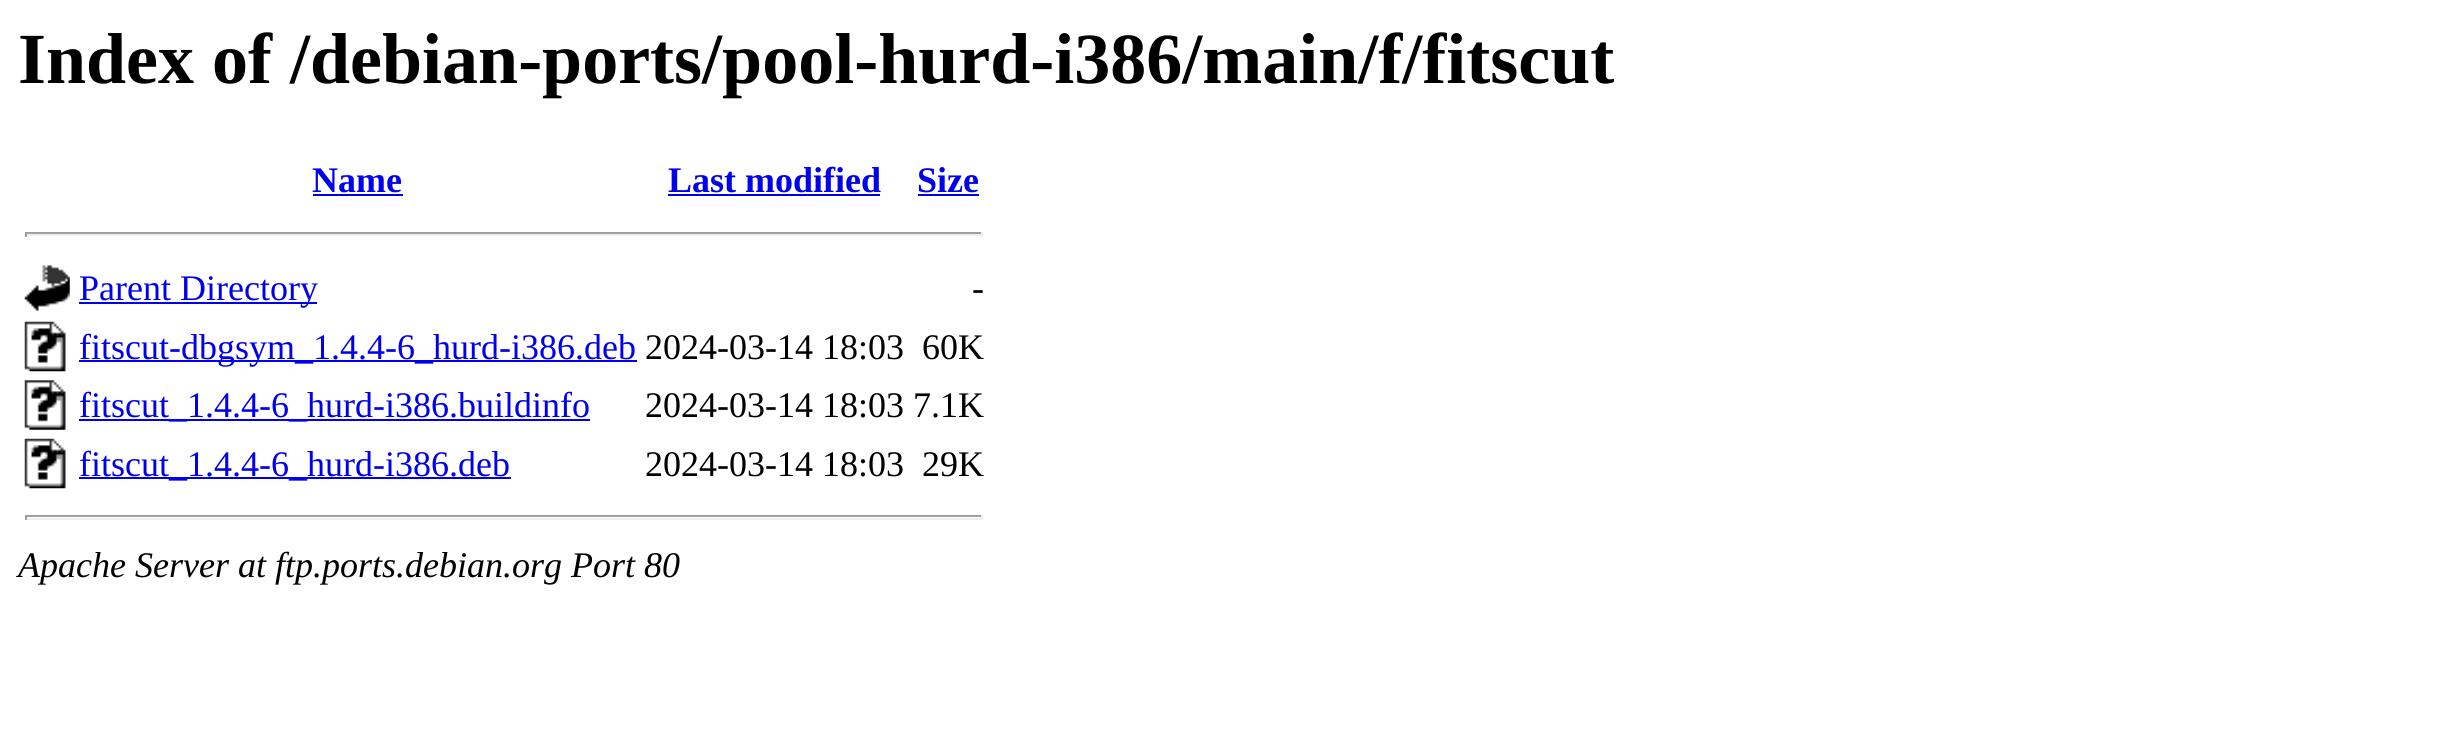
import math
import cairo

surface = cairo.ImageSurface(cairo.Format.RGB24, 2447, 734)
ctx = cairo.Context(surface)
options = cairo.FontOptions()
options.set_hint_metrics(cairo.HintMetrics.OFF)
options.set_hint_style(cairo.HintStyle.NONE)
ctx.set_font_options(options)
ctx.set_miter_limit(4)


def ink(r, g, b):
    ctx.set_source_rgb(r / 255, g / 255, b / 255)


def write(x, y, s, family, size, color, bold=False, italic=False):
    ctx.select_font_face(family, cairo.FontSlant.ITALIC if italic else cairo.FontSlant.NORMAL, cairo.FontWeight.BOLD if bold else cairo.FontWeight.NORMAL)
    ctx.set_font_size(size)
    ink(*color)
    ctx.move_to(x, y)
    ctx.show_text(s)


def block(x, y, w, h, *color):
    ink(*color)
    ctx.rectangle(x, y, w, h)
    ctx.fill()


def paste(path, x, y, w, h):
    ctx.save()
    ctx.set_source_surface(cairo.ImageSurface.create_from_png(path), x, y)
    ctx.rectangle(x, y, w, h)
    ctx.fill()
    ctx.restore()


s1 = dict(family="Liberation Serif", size=72, color=(0, 0, 0), bold=True)
s2 = dict(family="Liberation Serif", size=36, color=(0, 0, 238), bold=True)
s3 = dict(family="Liberation Serif", size=36, color=(0, 0, 238))
s4 = dict(family="Liberation Serif", size=36, color=(0, 0, 0))
s5 = dict(family="Liberation Serif", size=36, color=(0, 0, 0), italic=True)

ink(255, 255, 255)
ctx.paint()
write(18, 83, "Index of /debian-ports/pool-hurd-i386/main/f/fitscut", **s1)
write(312, 192, "Name", **s2)
block(313, 194, 90, 2, 0, 0, 238)
write(668, 192, "Last modified", **s2)
block(668, 194, 212, 2, 0, 0, 238)
write(917, 192, "Size", **s2)
block(918, 194, 61, 2, 0, 0, 238)
block(25, 232, 958, 2, 159, 159, 159)
block(981, 232, 2, 5, 238, 238, 238)
block(25, 234, 958, 2, 238, 238, 238)
block(25, 232, 2, 5, 159, 159, 159)
paste("pic1.png", 24, 265, 46, 47)
block(79, 302, 238, 2, 0, 0, 238)
write(79, 300, "Parent Directory", **s3)
write(972, 300, "-", **s4)
paste("pic2.png", 24, 321, 42, 51)
block(79, 360, 558, 2, 0, 0, 238)
write(79, 359, "fitscut-dbgsym_1.4.4-6_hurd-i386.deb", **s3)
write(645, 359, "2024-03-14 18:03", **s4)
write(922, 359, "60K", **s4)
paste("pic3.png", 24, 380, 42, 50)
block(79, 419, 511, 2, 0, 0, 238)
write(79, 417, "fitscut_1.4.4-6_hurd-i386.buildinfo", **s3)
write(645, 417, "2024-03-14 18:03 7.1K", **s4)
paste("pic2.png", 24, 438, 42, 51)
block(79, 477, 432, 2, 0, 0, 238)
write(79, 476, "fitscut_1.4.4-6_hurd-i386.deb", **s3)
write(645, 476, "2024-03-14 18:03", **s4)
write(922, 476, "29K", **s4)
block(25, 515, 958, 2, 159, 159, 159)
block(981, 515, 2, 5, 238, 238, 238)
block(25, 518, 958, 2, 238, 238, 238)
block(25, 515, 2, 5, 159, 159, 159)
write(18, 577, "Apache Server at ftp.ports.debian.org Port 80", **s5)
surface.write_to_png("screenshot.png")
